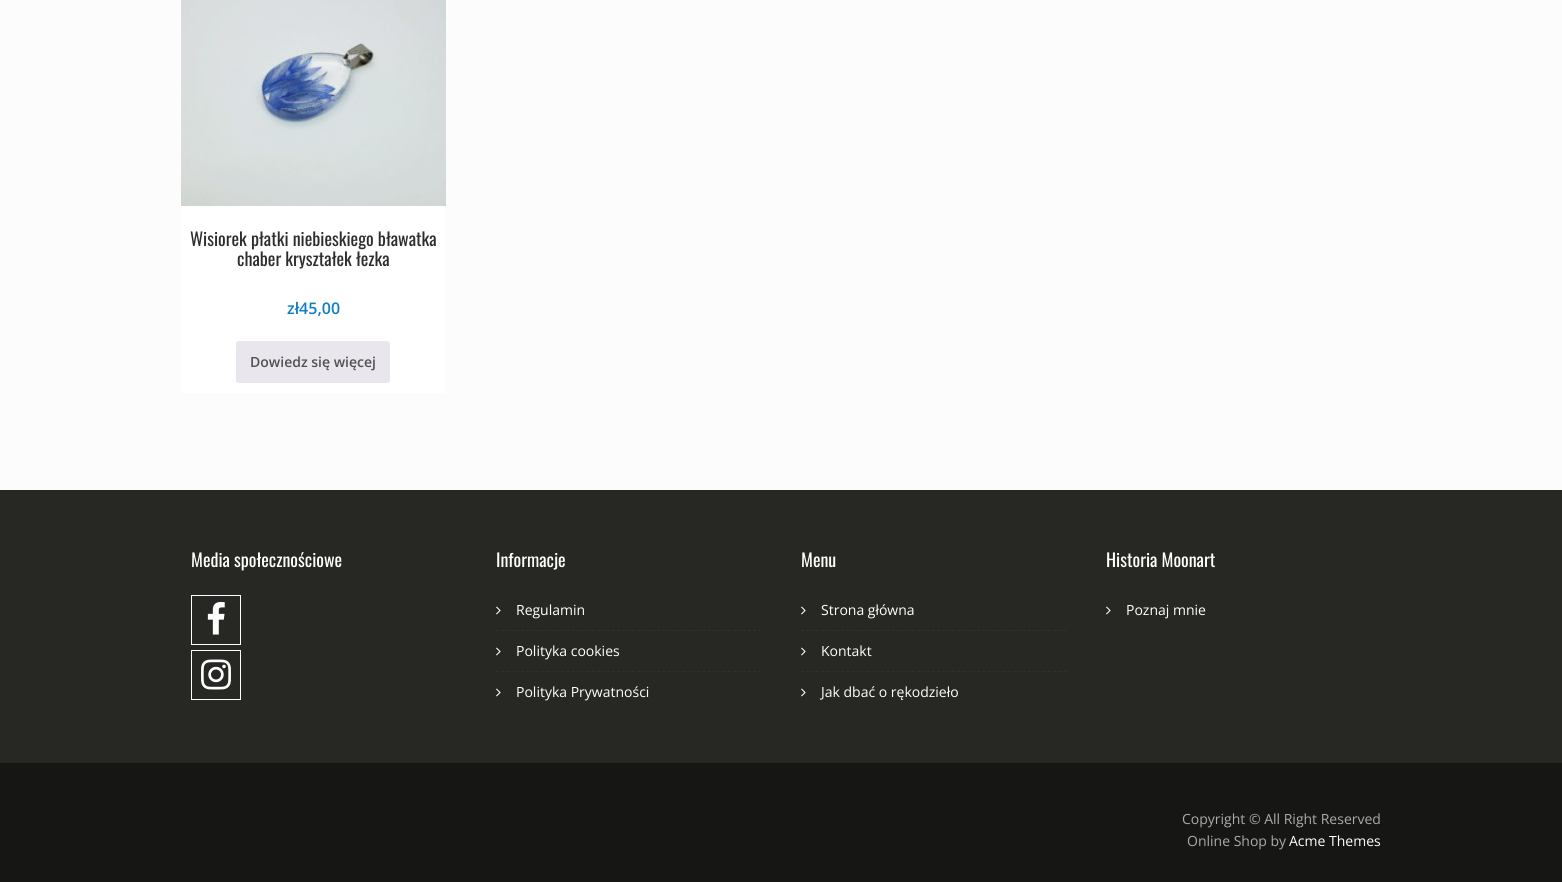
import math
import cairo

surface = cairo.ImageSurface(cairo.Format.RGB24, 1562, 882)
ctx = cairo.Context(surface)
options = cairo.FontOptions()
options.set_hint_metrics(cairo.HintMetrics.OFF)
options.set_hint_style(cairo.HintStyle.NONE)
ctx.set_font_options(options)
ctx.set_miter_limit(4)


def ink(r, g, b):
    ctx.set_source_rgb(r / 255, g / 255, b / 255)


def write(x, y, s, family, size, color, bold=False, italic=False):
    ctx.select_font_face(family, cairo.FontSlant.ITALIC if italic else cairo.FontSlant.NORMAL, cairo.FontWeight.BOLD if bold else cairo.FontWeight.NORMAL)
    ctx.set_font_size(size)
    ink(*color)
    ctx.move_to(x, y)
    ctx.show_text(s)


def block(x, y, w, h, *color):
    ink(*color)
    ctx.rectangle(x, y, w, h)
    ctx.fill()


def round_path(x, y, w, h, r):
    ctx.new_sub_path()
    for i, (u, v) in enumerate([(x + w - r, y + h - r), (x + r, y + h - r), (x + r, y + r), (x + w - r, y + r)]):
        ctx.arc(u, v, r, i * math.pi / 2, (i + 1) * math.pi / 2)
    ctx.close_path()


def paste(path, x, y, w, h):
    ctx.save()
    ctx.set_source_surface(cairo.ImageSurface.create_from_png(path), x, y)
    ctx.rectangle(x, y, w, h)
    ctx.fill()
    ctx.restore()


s1 = dict(family="Oswald", size=18, color=(45, 45, 45))
s2 = dict(family="Open Sans SemiBold", size=16, color=(17, 126, 197))
s3 = dict(family="Open Sans SemiBold", size=14, color=(81, 81, 81))
s4 = dict(family="Oswald", size=18, color=(255, 255, 255))
s5 = dict(family="Open Sans", size=14, color=(255, 255, 255))
s6 = dict(family="Open Sans", size=14, color=(171, 171, 171))

ink(252, 252, 252)
ctx.paint()
block(181, 206, 265, 187, 255, 255, 255)
paste("pic1.png", 181, 0, 265, 206)
write(190, 246, "Wisiorek płatki niebieskiego bławatka", **s1)
write(237, 266, "chaber kryształek łezka", **s1)
write(287, 314, "zł45,00", **s2)
ink(233, 230, 237)
round_path(236, 341, 154, 42, 3)
ctx.fill()
write(250, 367, "Dowiedz się więcej", **s3)
block(0, 490, 1562, 273, 39, 40, 35)
write(191, 567, "Media społecznościowe", **s4)
ctx.rectangle(191.5, 595.5, 49, 49)
ctx.set_line_width(1)
ctx.stroke()
paste("pic2.png", 207, 602, 18, 33)
ctx.rectangle(191.5, 650.5, 49, 49)
ctx.stroke()
paste("pic3.png", 201, 659, 30, 31)
write(496, 567, "Informacje", **s4)
paste("pic4.png", 496, 606, 5, 9)
write(516, 615, "Regulamin", **s5)
ctx.new_path()
ctx.move_to(496, 630.5)
ctx.line_to(761, 630.5)
ink(48, 48, 48)
ctx.set_dash([3, 2.04])
ctx.stroke()
paste("pic4.png", 496, 647, 5, 9)
write(516, 656, "Polityka cookies", **s5)
ctx.new_path()
ctx.move_to(496, 671.5)
ctx.line_to(761, 671.5)
ink(48, 48, 48)
ctx.stroke()
paste("pic4.png", 496, 688, 5, 9)
write(516, 697, "Polityka Prywatności", **s5)
write(801, 567, "Menu", **s4)
paste("pic4.png", 801, 606, 5, 9)
write(821, 615, "Strona główna", **s5)
ctx.new_path()
ctx.move_to(801, 630.5)
ctx.line_to(1066, 630.5)
ink(48, 48, 48)
ctx.stroke()
paste("pic4.png", 801, 647, 5, 9)
write(821, 656, "Kontakt", **s5)
ctx.new_path()
ctx.move_to(801, 671.5)
ctx.line_to(1066, 671.5)
ink(48, 48, 48)
ctx.stroke()
paste("pic4.png", 801, 688, 5, 9)
write(821, 697, "Jak dbać o rękodzieło", **s5)
write(1106, 567, "Historia Moonart", **s4)
paste("pic4.png", 1106, 606, 5, 9)
write(1126, 615, "Poznaj mnie", **s5)
block(0, 763, 1562, 119, 22, 22, 20)
write(1182, 824, "Copyright © All Right Reserved", **s6)
write(1187, 846, "Online Shop by", **s6)
write(1289, 846, "Acme Themes", **s5)
surface.write_to_png("screenshot.png")
